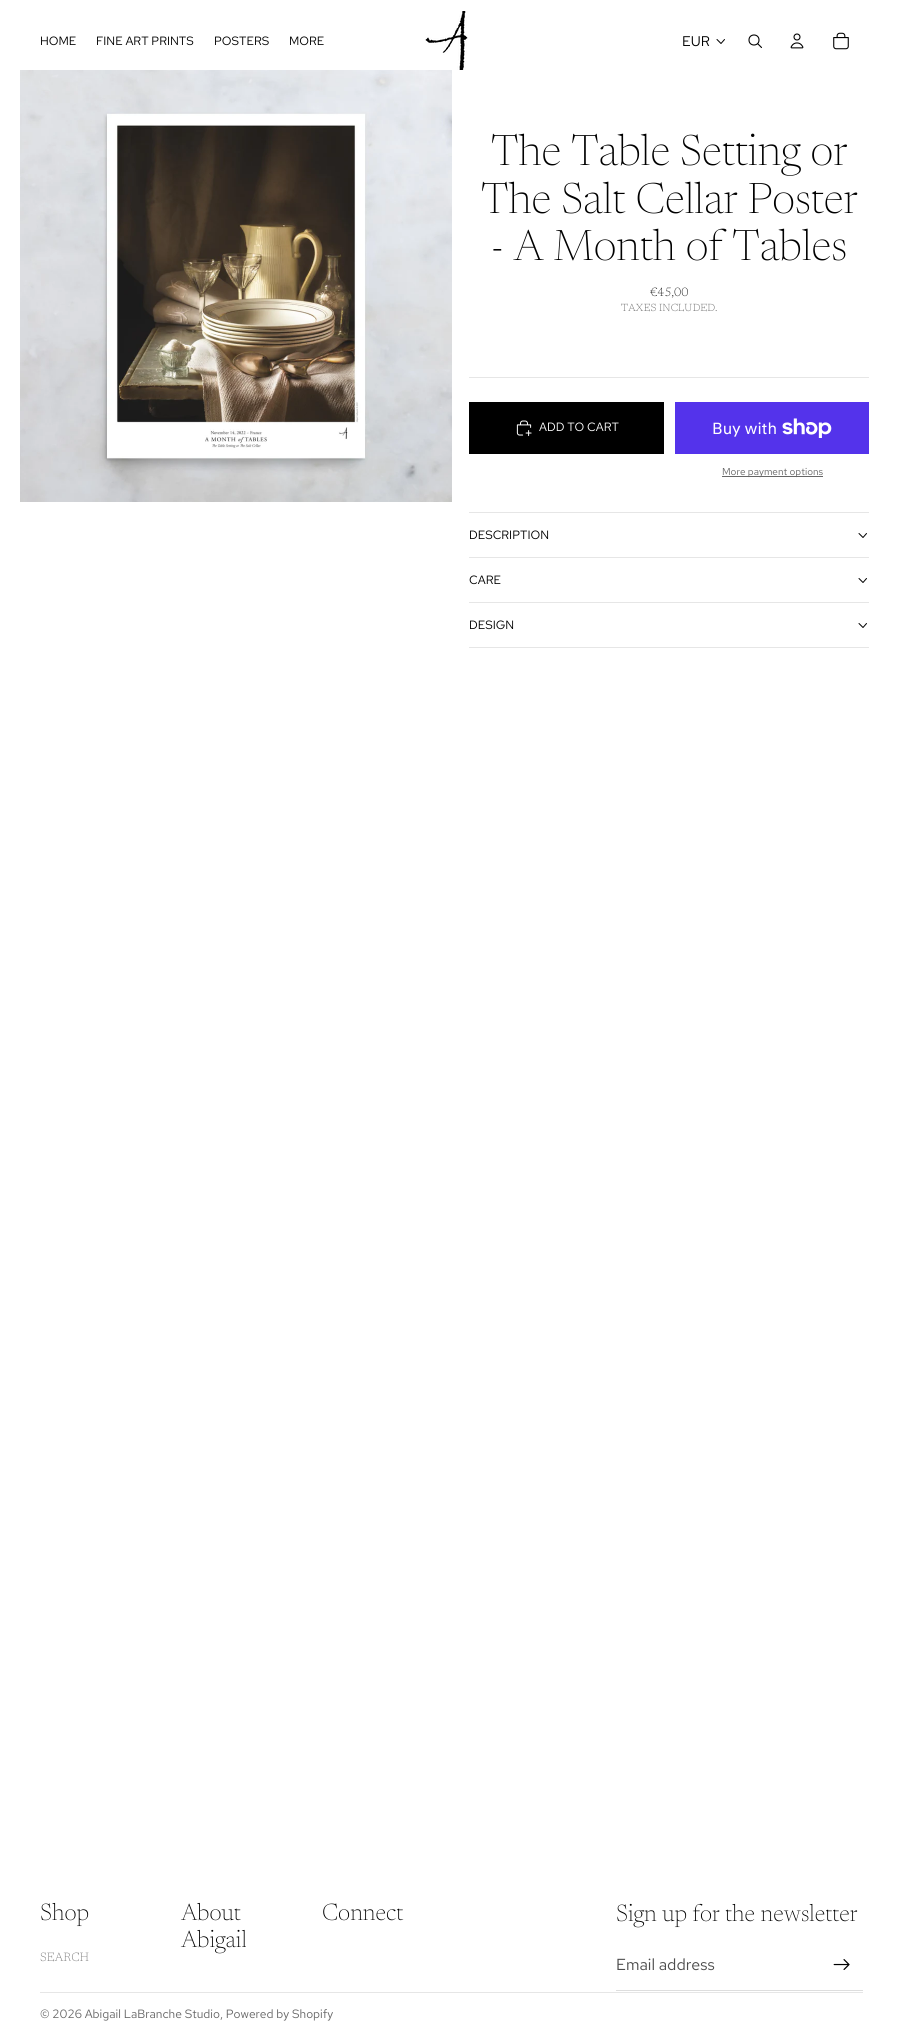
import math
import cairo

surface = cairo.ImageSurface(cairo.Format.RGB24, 903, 2040)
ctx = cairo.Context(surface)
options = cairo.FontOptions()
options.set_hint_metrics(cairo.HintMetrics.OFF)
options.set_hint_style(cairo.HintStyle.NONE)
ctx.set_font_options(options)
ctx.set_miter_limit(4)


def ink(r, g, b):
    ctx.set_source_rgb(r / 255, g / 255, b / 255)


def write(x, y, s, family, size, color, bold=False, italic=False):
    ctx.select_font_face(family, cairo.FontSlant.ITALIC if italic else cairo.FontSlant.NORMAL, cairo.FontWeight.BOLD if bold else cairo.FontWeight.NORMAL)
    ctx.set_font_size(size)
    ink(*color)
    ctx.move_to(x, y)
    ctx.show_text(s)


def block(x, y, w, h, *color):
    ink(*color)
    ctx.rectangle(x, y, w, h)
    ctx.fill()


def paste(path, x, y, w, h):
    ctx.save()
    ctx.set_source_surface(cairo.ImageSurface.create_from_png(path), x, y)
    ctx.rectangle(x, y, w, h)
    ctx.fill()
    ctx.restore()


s1 = dict(family="Red Hat Text", size=12, color=(0, 0, 0))
s2 = dict(family="Red Hat Text", size=14, color=(0, 0, 0))
s3 = dict(family="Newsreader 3 ExtraLight", size=43.25, color=(0, 0, 0))
s4 = dict(family="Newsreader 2 ExtraLight", size=12, color=(0, 0, 0))
s5 = dict(family="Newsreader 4 ExtraLight", size=10.25, color=(77, 77, 77))
s6 = dict(family="Red Hat Text", size=12, color=(255, 255, 255))
s7 = dict(family="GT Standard", size=16, color=(255, 255, 255))
s8 = dict(family="Red Hat Text", size=10, color=(102, 102, 102))
s9 = dict(family="Newsreader ExtraLight", size=24, color=(0, 0, 0))
s10 = dict(family="Newsreader 2 ExtraLight", size=12, color=(102, 102, 102))
s11 = dict(family="Red Hat Text", size=16, color=(77, 77, 77))
s12 = dict(family="Red Hat Text", size=12, color=(102, 102, 102))

ink(255, 255, 255)
ctx.paint()
write(40, 45, "HOME", **s1)
write(96, 45, "FINE ART PRINTS", **s1)
write(214, 45, "POSTERS", **s1)
write(289, 45, "MORE", **s1)
paste("pic1.png", 425, 11, 43, 59)
write(682, 46, "EUR", **s2)
ctx.new_path()
ctx.move_to(724.5, 39.5)
ctx.line_to(721, 43.5)
ctx.line_to(717, 39.5)
ctx.set_line_width(1)
ctx.set_line_cap(cairo.LineCap.ROUND)
ctx.set_line_join(cairo.LineJoin.ROUND)
ctx.stroke()
ctx.arc(754, 40, 5, 0, 2 * math.pi)
ctx.set_line_width(1.1)
ctx.set_line_cap(cairo.LineCap.BUTT)
ctx.set_line_join(cairo.LineJoin.MITER)
ctx.stroke()
ctx.new_path()
ctx.move_to(758, 44)
ctx.line_to(761.5, 47.5)
ctx.set_line_cap(cairo.LineCap.ROUND)
ctx.set_line_join(cairo.LineJoin.ROUND)
ctx.stroke()
paste("pic2.png", 790, 33, 14, 16)
paste("pic3.png", 833, 32, 16, 18)
paste("pic4.png", 20, 70, 432, 432)
write(491, 165, "The Table Setting or", **s3)
write(481, 213, "The Salt Cellar Poster", **s3)
write(491, 260, "- A Month of Tables", **s3)
write(650, 296, "€45,00", **s4)
write(621, 311, "TAXES INCLUDED.", **s5)
block(469, 377, 400, 1, 230, 230, 230)
block(469, 402, 195, 52, 0, 0, 0)
paste("pic5.png", 516, 420, 16, 17)
write(539, 431, "ADD TO CART", **s6)
block(675, 402, 194, 52, 84, 51, 235)
write(712, 434, "Buy with", **s7)
paste("pic6.png", 782, 418, 50, 20)
block(722, 476, 101, 1, 102, 102, 102)
write(722, 475, "More payment options", **s8)
block(469, 512, 400, 1, 230, 230, 230)
write(469, 539, "DESCRIPTION", **s1)
block(469, 557, 400, 1, 230, 230, 230)
ctx.new_path()
ctx.move_to(866.5, 533.5)
ctx.line_to(863, 537.5)
ctx.line_to(859, 533.5)
ctx.move_to(866.5, 578.5)
ctx.line_to(863, 582.5)
ctx.line_to(859, 578.5)
ink(0, 0, 0)
ctx.set_line_width(1)
ctx.stroke()
write(469, 584, "CARE", **s1)
block(469, 602, 400, 1, 230, 230, 230)
block(469, 647, 400, 1, 230, 230, 230)
write(469, 629, "DESIGN", **s1)
ctx.new_path()
ctx.move_to(866.5, 623.5)
ctx.line_to(863, 627.5)
ctx.line_to(859, 623.5)
ctx.stroke()
write(40, 1920, "Shop", **s9)
write(40, 1961, "SEARCH", **s10)
write(181, 1920, "About", **s9)
write(181, 1947, "Abigail", **s9)
write(322, 1920, "Connect", **s9)
write(616, 1921, "Sign up for the newsletter", **s9)
block(616, 1990, 247, 1, 222, 222, 222)
write(616, 1970, "Email address", **s11)
paste("pic7.png", 833, 1959, 17, 11)
block(40, 1992, 823, 1, 230, 230, 230)
write(40, 2018, "© 2026 Abigail LaBranche Studio, Powered by Shopify", **s12)
surface.write_to_png("screenshot.png")
